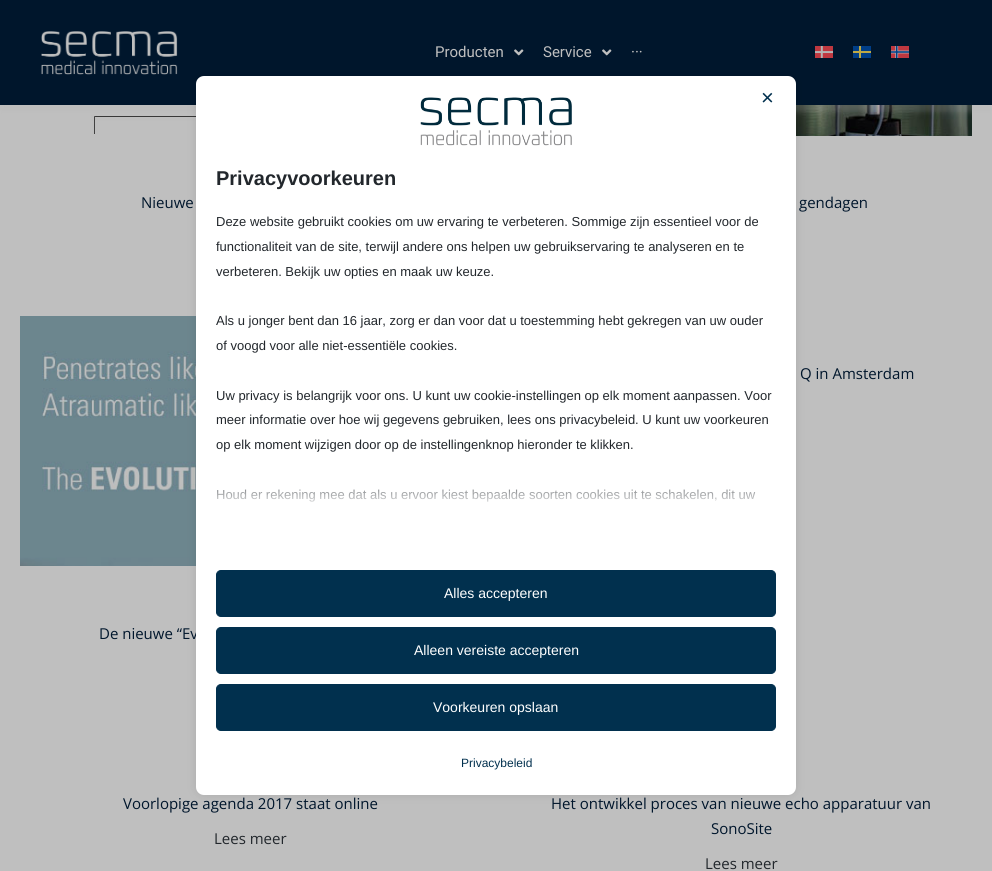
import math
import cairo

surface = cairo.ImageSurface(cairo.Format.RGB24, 992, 871)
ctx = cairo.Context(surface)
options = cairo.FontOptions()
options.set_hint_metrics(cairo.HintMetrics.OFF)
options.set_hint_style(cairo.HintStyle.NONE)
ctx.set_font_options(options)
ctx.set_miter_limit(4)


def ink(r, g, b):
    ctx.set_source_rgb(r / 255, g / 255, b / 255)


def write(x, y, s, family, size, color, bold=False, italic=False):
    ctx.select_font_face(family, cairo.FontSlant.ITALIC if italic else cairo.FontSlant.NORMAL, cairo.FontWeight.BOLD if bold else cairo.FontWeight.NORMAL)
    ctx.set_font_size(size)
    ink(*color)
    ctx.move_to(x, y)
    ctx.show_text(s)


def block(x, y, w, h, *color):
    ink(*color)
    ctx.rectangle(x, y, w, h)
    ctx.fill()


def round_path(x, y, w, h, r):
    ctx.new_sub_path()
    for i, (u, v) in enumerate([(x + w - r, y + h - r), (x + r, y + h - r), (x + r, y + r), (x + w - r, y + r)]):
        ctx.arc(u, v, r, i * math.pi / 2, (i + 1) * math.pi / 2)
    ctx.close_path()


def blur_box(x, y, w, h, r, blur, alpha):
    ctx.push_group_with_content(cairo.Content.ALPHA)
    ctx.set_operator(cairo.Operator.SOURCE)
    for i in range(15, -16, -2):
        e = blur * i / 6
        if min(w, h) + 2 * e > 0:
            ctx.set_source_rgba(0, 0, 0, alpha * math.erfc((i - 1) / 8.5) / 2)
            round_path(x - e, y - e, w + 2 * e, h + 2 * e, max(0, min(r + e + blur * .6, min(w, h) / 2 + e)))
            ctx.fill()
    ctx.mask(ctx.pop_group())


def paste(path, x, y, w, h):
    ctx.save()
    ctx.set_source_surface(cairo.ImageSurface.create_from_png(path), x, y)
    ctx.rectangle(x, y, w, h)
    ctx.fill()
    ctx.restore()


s1 = dict(family="Roboto", size=15, color=(191, 191, 191))
s2 = dict(family="Open Sans", size=15, color=(0, 22, 44))
s3 = dict(family="Open Sans", size=15, color=(34, 39, 44))
s4 = dict(family="Liberation Sans", size=22, color=(1, 48, 78))
s5 = dict(family="Liberation Sans", size=20, color=(34, 39, 44), bold=True)
s6 = dict(family="Liberation Sans", size=13, color=(34, 39, 44))
s7 = dict(family="Liberation Sans", size=14, color=(255, 255, 255))
s8 = dict(family="Liberation Sans", size=12, color=(1, 48, 78))

ink(191, 191, 191)
ctx.paint()
paste("pic5.png", 45, 105, 151, 29)
paste("pic6.png", 796, 105, 176, 31)
ink(182, 182, 182)
blur_box(0, 7, 992, 105, 0, 2.5, 0.2)
block(0, 0, 992, 105, 0, 22, 44)
paste("pic1.png", 41, 31, 137, 44)
write(435, 57, "Producten", **s1)
paste("pic2.png", 514, 49, 10, 7)
write(543, 57, "Service", **s1)
paste("pic2.png", 602, 49, 10, 7)
write(631, 57, "···", **s1)
paste("pic3.png", 815, 46, 18, 12)
block(853, 46, 18, 12, 0, 62, 135)
block(859, 46, 2, 12, 191, 169, 68)
block(853, 51, 18, 2, 191, 169, 68)
paste("pic4.png", 891, 46, 18, 12)
write(141, 208, "Nieuwe", **s2)
write(799, 208, "gendagen", **s2)
write(800, 379, "Q in Amsterdam", **s2)
paste("pic7.png", 20, 316, 176, 250)
write(99, 639, "De nieuwe “Ev", **s2)
write(123, 809, "Voorlopige agenda 2017 staat online", **s2)
write(214, 844, "Lees meer", **s3)
write(551, 809, "Het ontwikkel proces van nieuwe echo apparatuur van", **s2)
write(711, 834, "SonoSite", **s2)
write(705, 869, "Lees meer", **s3)
ink(0, 0, 0)
blur_box(196, 76, 600, 719, 8, 5, 0.1)
ink(255, 255, 255)
round_path(196, 76, 600, 719, 8)
ctx.fill()
paste("pic8.png", 420, 97, 152, 49)
write(761, 105, "×", **s4)
write(216, 185, "Privacyvoorkeuren", **s5)
write(216, 226, "Deze website gebruikt cookies om uw ervaring te verbeteren. Sommige zijn essentieel voor de", **s6)
write(216, 251, "functionaliteit van de site, terwijl andere ons helpen uw gebruikservaring te analyseren en te", **s6)
write(216, 276, "verbeteren. Bekijk uw opties en maak uw keuze.", **s6)
write(216, 325, "Als u jonger bent dan 16 jaar, zorg er dan voor dat u toestemming hebt gekregen van uw ouder", **s6)
write(216, 350, "of voogd voor alle niet-essentiële cookies.", **s6)
write(216, 400, "Uw privacy is belangrijk voor ons. U kunt uw cookie-instellingen op elk moment aanpassen. Voor", **s6)
write(216, 424, "meer informatie over hoe wij gegevens gebruiken, lees ons privacybeleid. U kunt uw voorkeuren", **s6)
write(216, 449, "op elk moment wijzigen door op de instellingenknop hieronder te klikken.", **s6)
write(216, 499, "Houd er rekening mee dat als u ervoor kiest bepaalde soorten cookies uit te schakelen, dit uw", **s6)
gradient = cairo.LinearGradient(496, 510, 496, 470)
gradient.add_color_stop_rgba(0, 1, 1, 1, 1)
gradient.add_color_stop_rgba(1, 1, 1, 1, 0)
ctx.set_source(gradient)
ctx.rectangle(217, 489, 539, 13)
ctx.fill()
ink(1, 48, 78)
round_path(216.5, 570.5, 559, 46, 4.5)
ctx.fill_preserve()
ctx.set_line_width(1)
ctx.stroke()
write(444, 598, "Alles accepteren", **s7)
ink(1, 48, 78)
round_path(216.5, 627.5, 559, 46, 4.5)
ctx.fill_preserve()
ctx.stroke()
write(414, 655, "Alleen vereiste accepteren", **s7)
ink(1, 48, 78)
round_path(216.5, 684.5, 559, 46, 4.5)
ctx.fill_preserve()
ctx.stroke()
write(433, 712, "Voorkeuren opslaan", **s7)
write(461, 767, "Privacybeleid", **s8)
surface.write_to_png("screenshot.png")
